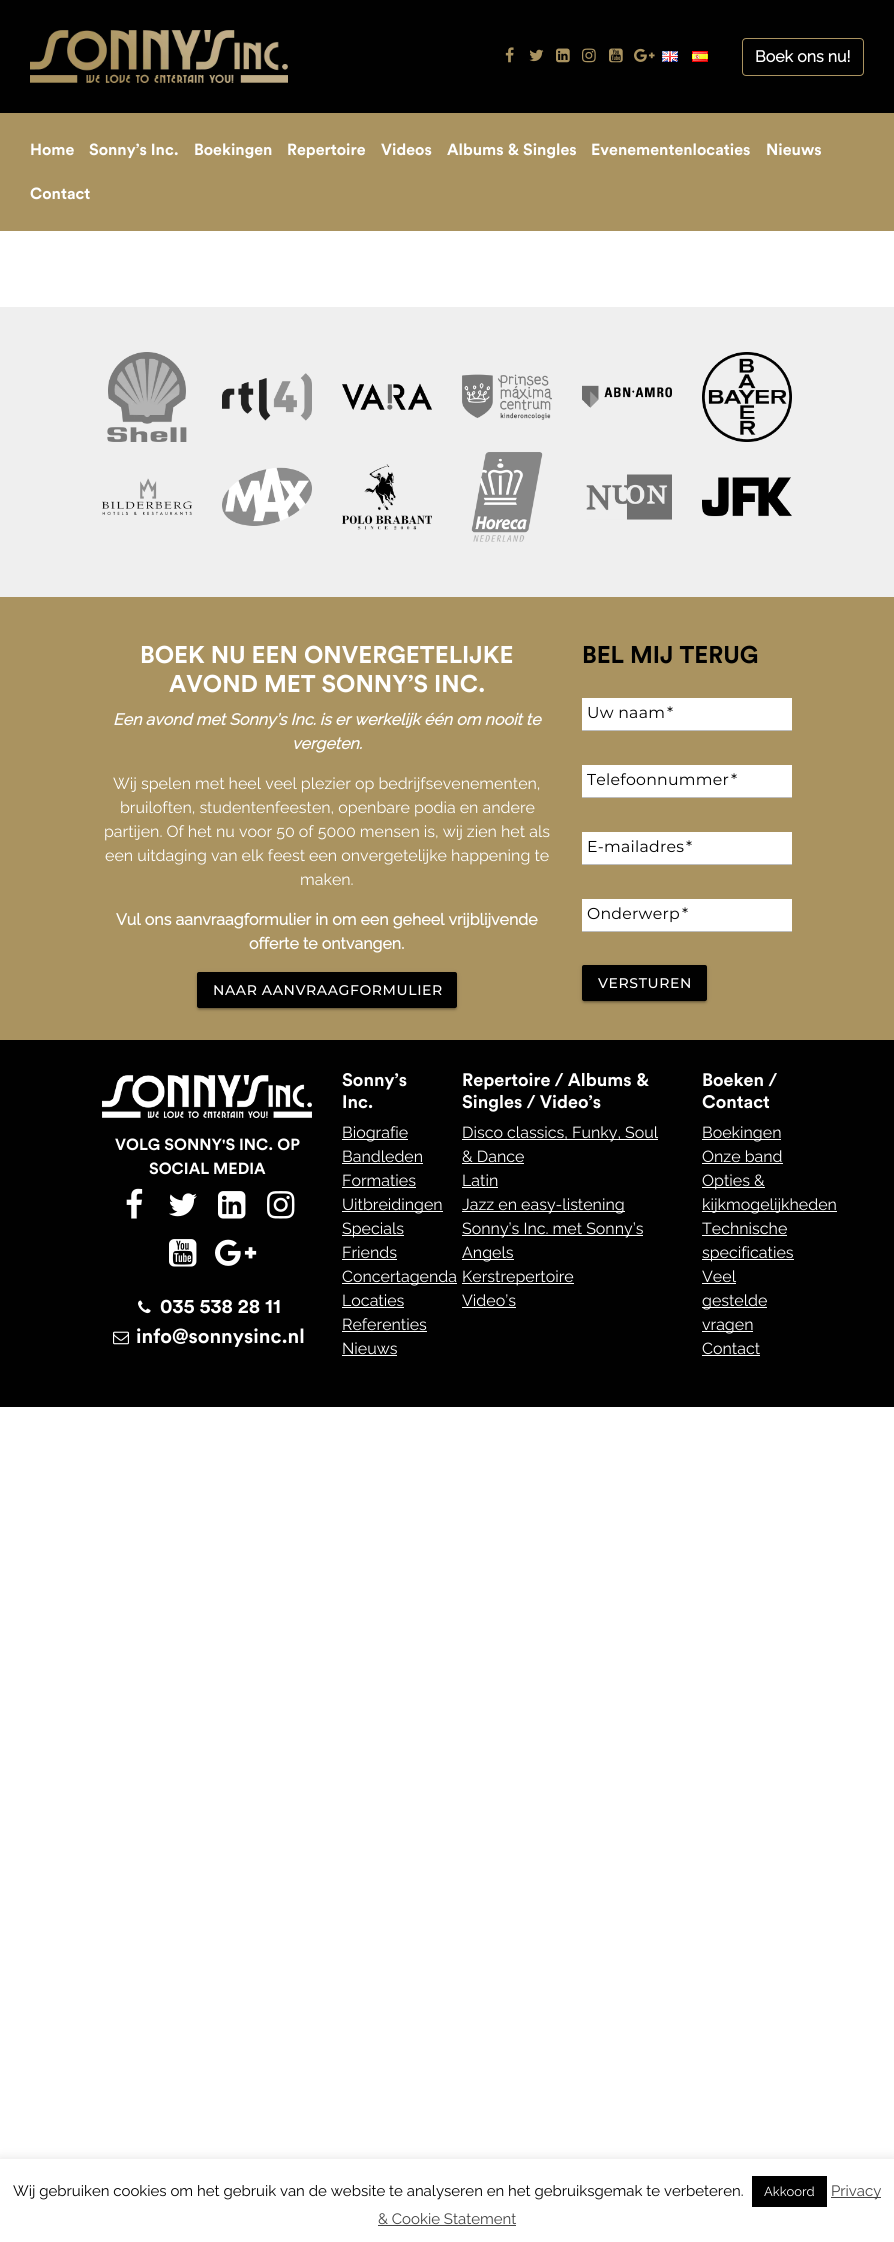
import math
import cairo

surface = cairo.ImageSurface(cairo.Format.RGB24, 894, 2242)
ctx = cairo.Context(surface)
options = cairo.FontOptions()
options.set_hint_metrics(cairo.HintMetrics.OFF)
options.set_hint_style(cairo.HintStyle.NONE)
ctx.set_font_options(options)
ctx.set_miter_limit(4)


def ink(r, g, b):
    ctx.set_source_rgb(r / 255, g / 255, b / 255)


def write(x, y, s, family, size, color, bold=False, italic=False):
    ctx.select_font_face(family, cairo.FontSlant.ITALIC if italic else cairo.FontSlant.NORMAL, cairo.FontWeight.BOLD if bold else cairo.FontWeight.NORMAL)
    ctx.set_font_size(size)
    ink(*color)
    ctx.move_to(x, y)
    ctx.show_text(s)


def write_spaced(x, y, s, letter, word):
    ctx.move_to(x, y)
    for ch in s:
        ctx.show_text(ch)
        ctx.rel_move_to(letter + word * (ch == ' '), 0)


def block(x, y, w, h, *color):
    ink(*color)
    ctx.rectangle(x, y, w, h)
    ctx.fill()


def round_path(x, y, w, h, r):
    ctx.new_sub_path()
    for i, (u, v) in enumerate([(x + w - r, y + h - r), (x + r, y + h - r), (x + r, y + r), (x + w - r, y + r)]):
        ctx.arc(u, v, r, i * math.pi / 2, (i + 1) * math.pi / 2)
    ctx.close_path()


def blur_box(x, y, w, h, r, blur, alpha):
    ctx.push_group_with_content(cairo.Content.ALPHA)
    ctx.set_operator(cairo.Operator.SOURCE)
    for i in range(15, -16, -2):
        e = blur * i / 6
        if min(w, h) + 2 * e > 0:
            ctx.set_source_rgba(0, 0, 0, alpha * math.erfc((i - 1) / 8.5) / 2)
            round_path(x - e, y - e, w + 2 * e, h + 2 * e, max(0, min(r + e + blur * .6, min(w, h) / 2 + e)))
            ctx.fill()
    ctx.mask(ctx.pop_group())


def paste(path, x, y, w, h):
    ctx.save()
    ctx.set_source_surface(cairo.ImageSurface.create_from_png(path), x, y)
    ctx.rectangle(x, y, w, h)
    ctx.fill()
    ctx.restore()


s1 = dict(family="Raleway", size=16, color=(255, 255, 255), bold=True)
s2 = dict(family="Circular", size=16, color=(255, 255, 255), bold=True)
s3 = dict(family="Circular", size=24, color=(255, 255, 255), bold=True)
s4 = dict(family="Raleway", size=16, color=(255, 255, 255), bold=True, italic=True)
s5 = dict(family="Raleway Thin", size=16, color=(255, 255, 255))
s6 = dict(family="Circular", size=24, color=(1, 1, 1), bold=True)
s7 = dict(family="Circular", size=20, color=(255, 255, 255), bold=True)
s8 = dict(family="Circular", size=18, color=(255, 255, 255), bold=True)
s9 = dict(family="Raleway Thin", size=15, color=(1, 1, 1))
s10 = dict(family="Raleway Thin", size=13, color=(255, 255, 255))
s11 = dict(family="Raleway Thin", size=15, color=(68, 68, 68))

ink(255, 255, 255)
ctx.paint()
block(0, 0, 894, 113, 1, 1, 1)
paste("pic1.png", 30, 30, 258, 53)
paste("pic2.png", 505, 47, 9, 16)
paste("pic3.png", 529, 49, 15, 13)
paste("pic4.png", 556, 48, 14, 15)
paste("pic5.png", 582, 48, 14, 15)
paste("pic6.png", 609, 48, 14, 15)
paste("pic7.png", 634, 48, 21, 14)
paste("pic8.png", 662, 51, 16, 11)
paste("pic9.png", 692, 51, 16, 11)
round_path(742.5, 38.5, 121, 37, 3.5)
ink(170, 147, 96)
ctx.set_line_width(1)
ctx.stroke()
write(755, 62, "Boek ons nu!", **s1)
block(0, 113, 894, 118, 170, 147, 96)
write(30, 155, "Home", **s2)
write(89, 155, "Sonny’s Inc.", **s2)
write(194, 155, "Boekingen", **s2)
write(287, 155, "Repertoire", **s2)
write(381, 155, "Videos", **s2)
write(447, 155, "Albums & Singles", **s2)
write(591, 155, "Evenementenlocaties", **s2)
write(766, 155, "Nieuws", **s2)
write(30, 199, "Contact", **s2)
block(0, 307, 894, 290, 239, 239, 239)
paste("pic10.png", 107, 352, 80, 90)
paste("pic11.png", 222, 373, 90, 48)
paste("pic12.png", 342, 383, 90, 27)
paste("pic13.png", 462, 374, 90, 46)
paste("pic14.png", 582, 385, 90, 23)
paste("pic15.png", 702, 352, 90, 90)
paste("pic16.png", 102, 478, 90, 37)
paste("pic17.png", 222, 467, 90, 59)
paste("pic18.png", 342, 464, 90, 66)
paste("pic19.png", 471, 452, 72, 90)
paste("pic20.png", 586, 474, 86, 46)
paste("pic21.png", 702, 477, 90, 40)
block(0, 597, 894, 443, 170, 147, 96)
write(140, 663, "BOEK NU EEN ONVERGETELIJKE", **s3)
write(169, 692, "AVOND MET SONNY’S INC.", **s3)
write(113, 725, "Een avond met Sonny’s Inc. is er werkelijk één om nooit te", **s4)
write(292, 749, "vergeten.", **s4)
write(113, 789, "Wij spelen met heel veel plezier op bedrijfsevenementen,", **s5)
write(120, 813, "bruiloften, studentenfeesten, openbare podia en andere", **s5)
write(104, 837, "partijen. Of het nu voor 50 of 5000 mensen is, wij zien het als", **s5)
write(105, 861, "een uitdaging van elk feest een onvergetelijke happening te", **s5)
write(300, 885, "maken.", **s5)
write(116, 925, "Vul ons aanvraagformulier in om een geheel vrijblijvende", **s1)
write(249, 949, "offerte te ontvangen.", **s1)
ink(0, 0, 0)
blur_box(197, 973, 260, 36, 2, 2.5, 0.12)
blur_box(197, 974, 260, 36, 2, 1, 0.14)
blur_box(199, 977, 256, 32, 0, 0.5, 0.2)
ink(1, 1, 1)
round_path(197, 972, 260, 36, 2)
ctx.fill()
ctx.select_font_face("Montserrat Medium")
ctx.set_font_size(14)
ink(255, 255, 255)
write_spaced(213, 995, "NAAR AANVRAAGFORMULIER", 0.6, 0)
write(582, 663, "BEL MIJ TERUG", **s6)
block(582, 698, 210, 32, 255, 255, 255)
ctx.select_font_face("Montserrat")
ctx.set_font_size(15.75)
ink(1, 1, 1)
write_spaced(587, 718, "Uw naam", 0.25, 0)
write_spaced(667, 718, "*", 0.25, 0)
block(582, 730, 210, 1, 189, 189, 189)
block(582, 765, 210, 32, 255, 255, 255)
ink(1, 1, 1)
write_spaced(587, 785, "Telefoonnummer", 0.25, 0)
write_spaced(731, 785, "*", 0.25, 0)
block(582, 797, 210, 1, 189, 189, 189)
block(582, 832, 210, 32, 255, 255, 255)
ink(1, 1, 1)
write_spaced(587, 852, "E-mailadres", 0.25, 0)
write_spaced(686, 852, "*", 0.25, 0)
block(582, 864, 210, 1, 189, 189, 189)
block(582, 899, 210, 32, 255, 255, 255)
ink(1, 1, 1)
write_spaced(587, 919, "Onderwerp", 0.25, 0)
write_spaced(682, 919, "*", 0.25, 0)
block(582, 931, 210, 1, 189, 189, 189)
ink(0, 0, 0)
blur_box(582, 966, 125, 36, 2, 2.5, 0.12)
blur_box(582, 967, 125, 36, 2, 1, 0.14)
blur_box(584, 970, 121, 32, 0, 0.5, 0.2)
ink(1, 1, 1)
round_path(582, 965, 125, 36, 2)
ctx.fill()
ctx.select_font_face("Montserrat Medium")
ctx.set_font_size(14)
ink(255, 255, 255)
write_spaced(598, 988, "VERSTUREN", 0.6, 0)
block(0, 1040, 894, 367, 1, 1, 1)
paste("pic22.png", 102, 1075, 210, 43)
write(115, 1150, "VOLG SONNY'S INC. OP", **s2)
write(149, 1174, "SOCIAL MEDIA", **s2)
paste("pic23.png", 126, 1188, 17, 31)
paste("pic24.png", 169, 1193, 28, 24)
paste("pic25.png", 218, 1191, 28, 28)
paste("pic26.png", 267, 1191, 28, 28)
paste("pic27.png", 169, 1239, 28, 28)
paste("pic28.png", 215, 1239, 42, 27)
paste("pic29.png", 138, 1300, 13, 14)
write(160, 1313, "035 538 28 11", **s7)
paste("pic30.png", 113, 1331, 16, 14)
write(136, 1343, "info@sonnysinc.nl", **s7)
write(342, 1086, "Sonny’s", **s8)
write(342, 1108, "Inc.", **s8)
block(342, 1139, 66, 1, 255, 255, 255)
write(342, 1138, "Biografie", **s5)
write(342, 1162, "Bandleden", **s5)
block(342, 1163, 81, 1, 255, 255, 255)
write(342, 1186, "Formaties", **s5)
block(342, 1187, 74, 1, 255, 255, 255)
block(342, 1211, 101, 1, 255, 255, 255)
write(342, 1210, "Uitbreidingen", **s5)
block(342, 1235, 62, 1, 255, 255, 255)
write(342, 1234, "Specials", **s5)
write(342, 1258, "Friends", **s5)
block(342, 1259, 55, 1, 255, 255, 255)
block(342, 1283, 115, 1, 255, 255, 255)
write(342, 1282, "Concertagenda", **s5)
write(342, 1306, "Locaties", **s5)
block(342, 1307, 62, 1, 255, 255, 255)
write(342, 1330, "Referenties", **s5)
block(342, 1331, 85, 1, 255, 255, 255)
write(342, 1354, "Nieuws", **s5)
block(342, 1355, 55, 1, 255, 255, 255)
write(462, 1086, "Repertoire / Albums &", **s8)
write(462, 1108, "Singles / Video’s", **s8)
block(462, 1139, 196, 1, 255, 255, 255)
write(462, 1138, "Disco classics, Funky, Soul", **s5)
write(462, 1162, "& Dance", **s5)
block(462, 1163, 62, 1, 255, 255, 255)
write(462, 1186, "Latin", **s5)
block(462, 1187, 36, 1, 255, 255, 255)
block(462, 1211, 163, 1, 255, 255, 255)
write(462, 1210, "Jazz en easy-listening", **s5)
block(462, 1235, 181, 1, 255, 255, 255)
write(462, 1234, "Sonny’s Inc. met Sonny’s", **s5)
block(462, 1259, 52, 1, 255, 255, 255)
write(462, 1258, "Angels", **s5)
block(462, 1283, 112, 1, 255, 255, 255)
write(462, 1282, "Kerstrepertoire", **s5)
write(462, 1306, "Video’s", **s5)
block(462, 1307, 54, 1, 255, 255, 255)
write(702, 1086, "Boeken /", **s8)
write(702, 1108, "Contact", **s8)
block(702, 1139, 79, 1, 255, 255, 255)
write(702, 1138, "Boekingen", **s5)
write(702, 1162, "Onze band", **s5)
block(702, 1163, 81, 1, 255, 255, 255)
block(702, 1187, 63, 1, 255, 255, 255)
write(702, 1186, "Opties &", **s5)
block(702, 1211, 135, 1, 255, 255, 255)
write(702, 1210, "kijkmogelijkheden", **s5)
write(702, 1234, "Technische", **s5)
block(702, 1235, 85, 1, 255, 255, 255)
block(702, 1259, 92, 1, 255, 255, 255)
write(702, 1258, "specificaties", **s5)
write(702, 1282, "Veel", **s5)
block(702, 1283, 34, 1, 255, 255, 255)
block(702, 1307, 65, 1, 255, 255, 255)
write(702, 1306, "gestelde", **s5)
block(702, 1331, 51, 1, 255, 255, 255)
write(702, 1330, "vragen", **s5)
write(702, 1354, "Contact", **s5)
block(702, 1355, 58, 1, 255, 255, 255)
ink(172, 171, 171)
blur_box(0, 2158, 894, 83, 0, 5, 0.3)
block(0, 2159, 894, 83, 255, 255, 255)
write(13, 2196, "Wij gebruiken cookies om het gebruik van de website te analyseren en het gebruiksgemak te verbeteren.", **s9)
block(752, 2176, 75, 31, 0, 0, 0)
write(764, 2196, "Akkoord", **s10)
block(831, 2197, 50, 1, 68, 68, 68)
write(831, 2196, "Privacy", **s11)
write(378, 2224, "& Cookie Statement", **s11)
block(378, 2225, 138, 1, 68, 68, 68)
surface.write_to_png("screenshot.png")
